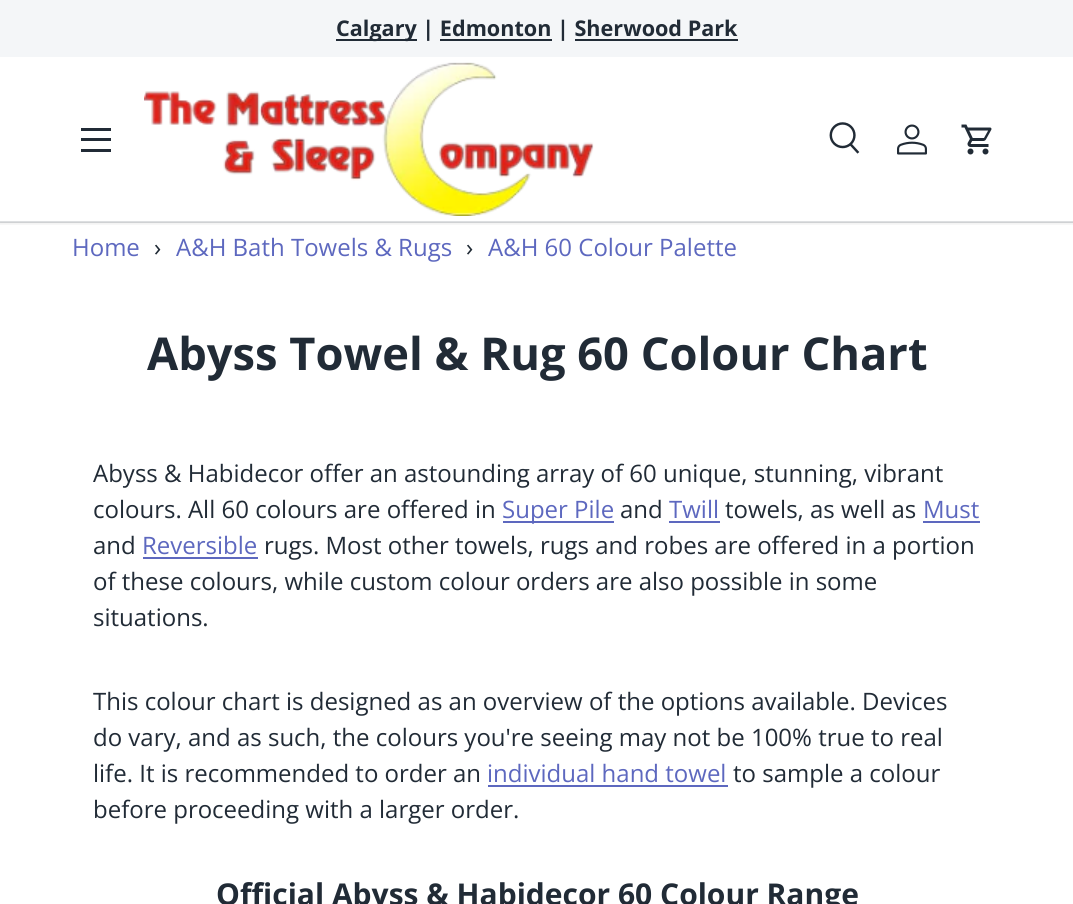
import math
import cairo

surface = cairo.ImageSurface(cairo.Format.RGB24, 1073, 904)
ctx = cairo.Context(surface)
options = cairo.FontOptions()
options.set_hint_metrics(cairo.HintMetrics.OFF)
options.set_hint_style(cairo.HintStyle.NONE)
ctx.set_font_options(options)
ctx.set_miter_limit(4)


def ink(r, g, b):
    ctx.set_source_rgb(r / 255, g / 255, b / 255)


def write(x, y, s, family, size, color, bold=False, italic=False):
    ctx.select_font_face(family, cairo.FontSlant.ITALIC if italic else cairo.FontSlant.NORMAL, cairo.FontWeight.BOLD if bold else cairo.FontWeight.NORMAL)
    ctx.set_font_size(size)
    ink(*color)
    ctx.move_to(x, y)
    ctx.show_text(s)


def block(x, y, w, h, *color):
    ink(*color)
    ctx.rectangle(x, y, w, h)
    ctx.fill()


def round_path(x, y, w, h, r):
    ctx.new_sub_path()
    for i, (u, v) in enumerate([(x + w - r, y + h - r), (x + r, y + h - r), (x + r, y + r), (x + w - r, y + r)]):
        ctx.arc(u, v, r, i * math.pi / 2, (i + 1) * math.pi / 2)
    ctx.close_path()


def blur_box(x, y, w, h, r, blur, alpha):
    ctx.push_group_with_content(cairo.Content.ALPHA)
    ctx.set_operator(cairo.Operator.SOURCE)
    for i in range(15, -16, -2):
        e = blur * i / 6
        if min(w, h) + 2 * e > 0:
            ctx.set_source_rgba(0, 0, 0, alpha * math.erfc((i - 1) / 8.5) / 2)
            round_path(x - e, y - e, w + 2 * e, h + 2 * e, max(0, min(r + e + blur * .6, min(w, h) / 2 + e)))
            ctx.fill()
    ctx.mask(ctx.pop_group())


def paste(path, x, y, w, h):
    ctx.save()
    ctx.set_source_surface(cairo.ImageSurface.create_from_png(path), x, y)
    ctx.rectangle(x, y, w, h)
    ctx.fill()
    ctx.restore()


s1 = dict(family="Open Sans", size=21.6, color=(33, 43, 54), bold=True)
s2 = dict(family="Open Sans", size=24, color=(93, 104, 191))
s3 = dict(family="Open Sans", size=24, color=(33, 43, 54))
s4 = dict(family="Open Sans", size=45.25, color=(33, 43, 54), bold=True)
s5 = dict(family="Open Sans", size=30, color=(33, 43, 54), bold=True)

ink(255, 255, 255)
ctx.paint()
ctx.save()
ctx.rectangle(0, 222, 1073, 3)
ctx.clip()
ink(0, 0, 0)
blur_box(-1, 56, 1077, 168, 0, 2, 0.08)
ctx.restore()
block(0, 0, 1073, 57, 244, 246, 248)
block(336, 39, 81, 2, 33, 43, 54)
write(336, 36, "Calgary | Edmonton | Sherwood Park", **s1)
block(440, 39, 112, 2, 33, 43, 54)
block(575, 39, 163, 2, 33, 43, 54)
block(81, 128, 30, 3, 33, 43, 54)
block(81, 149, 30, 3, 33, 43, 54)
block(81, 138, 30, 3, 33, 43, 54)
paste("pic1.png", 144, 62, 450, 154)
paste("pic2.png", 829, 122, 31, 32)
paste("pic3.png", 897, 124, 30, 31)
paste("pic4.png", 961, 124, 31, 31)
ctx.set_source_rgba(0.129, 0.169, 0.212, 0.15)
ctx.rectangle(0, 221, 1073, 2)
ctx.fill()
write(72, 256, "Home", **s2)
write(154, 256, "›", **s3)
write(176, 256, "A&H Bath Towels & Rugs", **s2)
write(466, 256, "›", **s3)
write(488, 256, "A&H 60 Colour Palette", **s2)
write(147, 370, "Abyss Towel & Rug 60 Colour Chart", **s4)
write(93, 482, "Abyss & Habidecor offer an astounding array of 60 unique, stunning, vibrant", **s3)
write(93, 518, "colours. All 60 colours are offered in", **s3)
block(503, 521, 111, 2, 93, 104, 191)
write(502, 518, "Super Pile", **s2)
write(620, 518, "and", **s3)
write(669, 518, "Twill", **s2)
block(669, 521, 51, 2, 93, 104, 191)
write(725, 518, "towels, as well as", **s3)
write(923, 518, "Must", **s2)
block(923, 521, 57, 2, 93, 104, 191)
write(93, 554, "and", **s3)
write(142, 554, "Reversible", **s2)
block(143, 557, 115, 2, 93, 104, 191)
write(264, 554, "rugs. Most other towels, rugs and robes are offered in a portion", **s3)
write(93, 590, "of these colours, while custom colour orders are also possible in some", **s3)
write(93, 626, "situations.", **s3)
write(93, 710, "This colour chart is designed as an overview of the options available. Devices", **s3)
write(93, 746, "do vary, and as such, the colours you're seeing may not be 100% true to real", **s3)
write(93, 782, "life. It is recommended to order an", **s3)
write(487, 782, "individual hand towel", **s2)
block(488, 785, 240, 2, 93, 104, 191)
write(733, 782, "to sample a colour", **s3)
write(93, 818, "before proceeding with a larger order.", **s3)
write(216, 905, "Official Abyss & Habidecor 60 Colour Range", **s5)
surface.write_to_png("screenshot.png")
